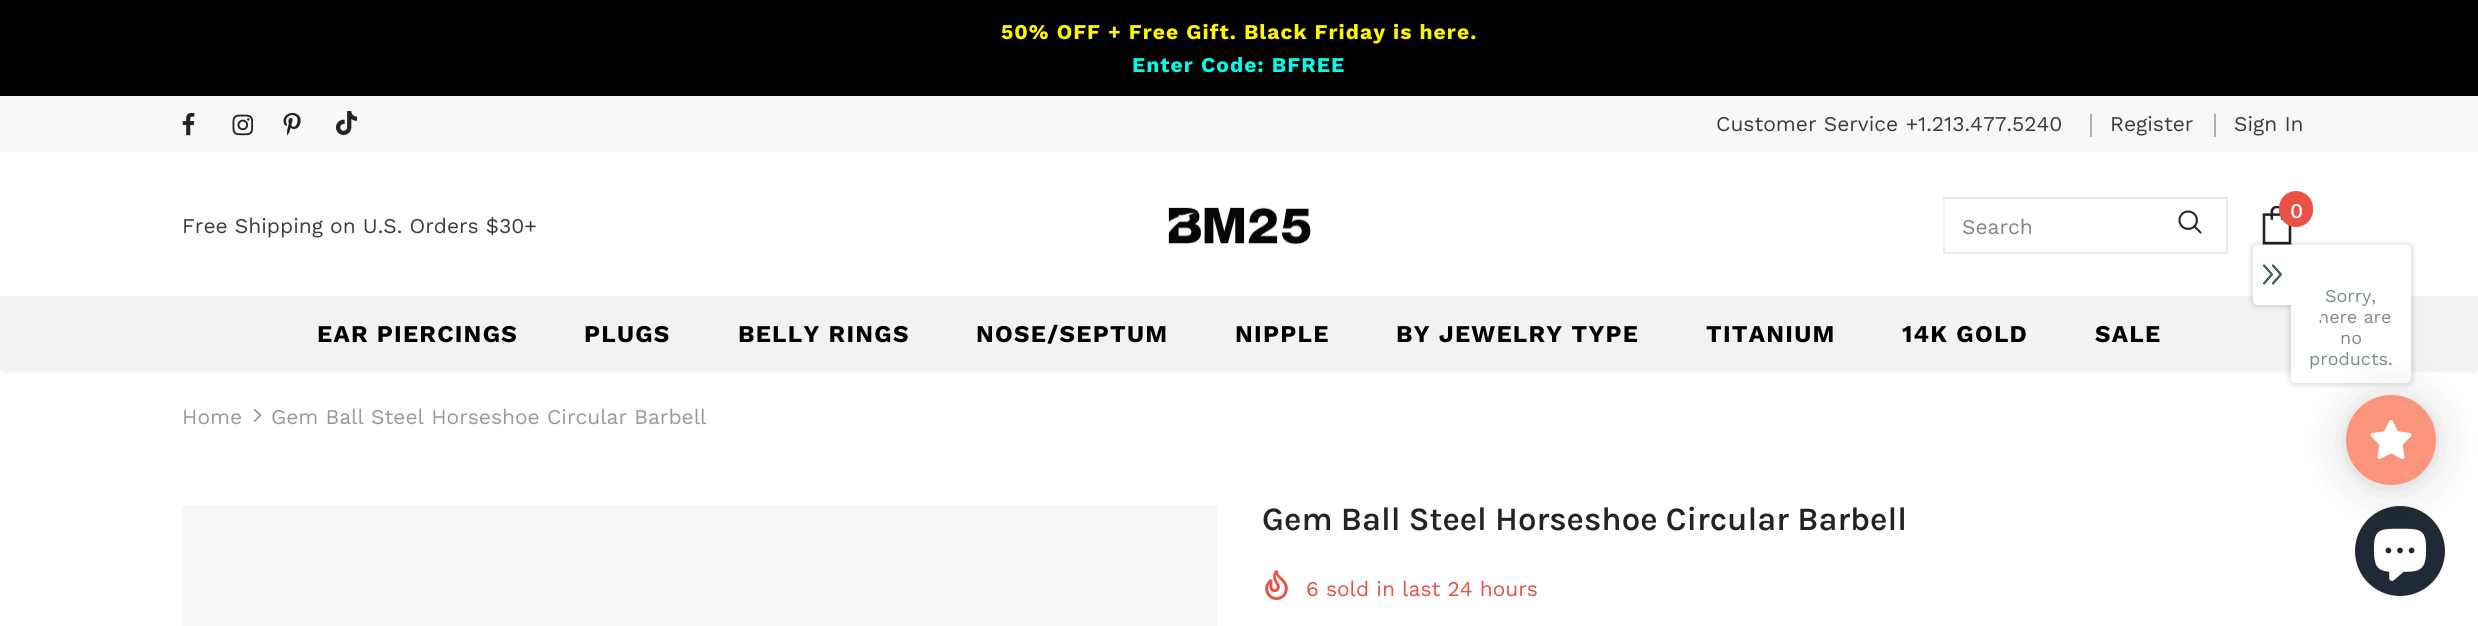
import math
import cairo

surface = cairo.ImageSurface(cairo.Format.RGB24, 2478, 626)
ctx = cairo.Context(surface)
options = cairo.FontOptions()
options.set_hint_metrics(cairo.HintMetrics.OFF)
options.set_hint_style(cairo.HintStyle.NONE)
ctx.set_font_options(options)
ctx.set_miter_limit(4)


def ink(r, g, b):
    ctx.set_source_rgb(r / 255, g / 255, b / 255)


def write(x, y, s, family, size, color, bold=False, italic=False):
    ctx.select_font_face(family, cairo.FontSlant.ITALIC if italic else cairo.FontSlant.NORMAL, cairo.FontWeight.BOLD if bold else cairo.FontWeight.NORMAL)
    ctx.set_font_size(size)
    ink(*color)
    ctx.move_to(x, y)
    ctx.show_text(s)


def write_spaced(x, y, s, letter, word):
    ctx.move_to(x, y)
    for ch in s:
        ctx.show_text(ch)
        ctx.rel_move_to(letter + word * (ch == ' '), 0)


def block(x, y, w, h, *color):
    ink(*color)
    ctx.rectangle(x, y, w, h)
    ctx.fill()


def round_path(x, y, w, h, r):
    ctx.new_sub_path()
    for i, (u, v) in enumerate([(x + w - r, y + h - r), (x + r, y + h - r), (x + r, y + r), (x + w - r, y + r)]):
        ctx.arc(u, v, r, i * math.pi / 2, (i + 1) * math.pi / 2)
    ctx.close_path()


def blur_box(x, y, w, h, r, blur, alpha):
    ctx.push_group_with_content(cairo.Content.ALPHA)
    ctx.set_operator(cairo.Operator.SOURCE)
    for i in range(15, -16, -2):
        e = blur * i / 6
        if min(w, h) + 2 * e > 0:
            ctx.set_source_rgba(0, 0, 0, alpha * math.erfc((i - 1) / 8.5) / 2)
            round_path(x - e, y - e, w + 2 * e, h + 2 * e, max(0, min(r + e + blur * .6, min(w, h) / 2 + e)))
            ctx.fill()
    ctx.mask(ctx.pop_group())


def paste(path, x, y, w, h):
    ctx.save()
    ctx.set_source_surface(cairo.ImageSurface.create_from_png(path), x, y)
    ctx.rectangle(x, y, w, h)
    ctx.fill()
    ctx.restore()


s1 = dict(family="Work Sans", size=21, color=(60, 60, 60))
s2 = dict(family="Work Sans Medium", size=21, color=(255, 255, 255))
s3 = dict(family="Work Sans", size=21, color=(132, 132, 132))
s4 = dict(family="Work Sans", size=18, color=(125, 139, 142))
s5 = dict(family="Work Sans", size=21, color=(153, 153, 153))
s6 = dict(family="Karla SemiBold", size=33, color=(35, 35, 35))
s7 = dict(family="Work Sans", size=21, color=(233, 81, 68))

ink(255, 255, 255)
ctx.paint()
block(0, 0, 2478, 96, 0, 0, 0)
ctx.select_font_face("Work Sans", cairo.FontSlant.NORMAL, cairo.FontWeight.BOLD)
ctx.set_font_size(21)
ink(255, 246, 0)
write_spaced(1001, 39, "50% OFF + Free Gift. Black Friday is here.", 1.05, 0)
ink(0, 255, 234)
write_spaced(1132, 72, "Enter Code: BFREE", 1.05, 0)
block(0, 96, 2478, 56, 248, 248, 248)
paste("pic1.png", 182, 112, 13, 24)
paste("pic2.png", 232, 114, 22, 22)
paste("pic3.png", 283, 112, 18, 24)
paste("pic4.png", 335, 111, 23, 24)
write(1716, 131, "Customer Service +1.213.477.5240", **s1)
block(2090, 114, 2, 23, 179, 179, 179)
write(2110, 131, "Register", **s1)
block(2214, 114, 2, 23, 179, 179, 179)
write(2234, 131, "Sign In", **s1)
write(182, 233, "Free Shipping on U.S. Orders $30+", **s1)
paste("pic5.png", 1168, 207, 143, 38)
paste("pic6.png", 2262, 206, 30, 39)
ink(233, 81, 68)
round_path(2279, 191, 34, 36, 17)
ctx.fill()
write(2290, 218, "0", **s2)
ctx.rectangle(1944, 198, 283, 55)
ink(235, 235, 235)
ctx.stroke()
write(1962, 234, "Search", **s3)
paste("pic7.png", 2178, 210, 24, 24)
ink(0, 0, 0)
blur_box(5, 305, 2469, 66, 0, 2, 0.1)
block(0, 296, 2478, 75, 242, 242, 242)
ctx.select_font_face("Work Sans", cairo.FontSlant.NORMAL, cairo.FontWeight.BOLD)
ctx.set_font_size(24)
ink(0, 0, 0)
write_spaced(317, 342, "EAR PIERCINGS", 1.25, 0)
write_spaced(584, 342, "PLUGS", 1.25, 0)
write_spaced(738, 342, "BELLY RINGS", 1.25, 0)
write_spaced(976, 342, "NOSE/SEPTUM", 1.25, 0)
write_spaced(1235, 342, "NIPPLE", 1.25, 0)
write_spaced(1396, 342, "BY JEWELRY TYPE", 1.25, 0)
write_spaced(1706, 342, "TITANIUM", 1.25, 0)
write_spaced(1902, 342, "14K GOLD", 1.25, 0)
write_spaced(2095, 342, "SALE", 1.25, 0)
ink(0, 0, 0)
blur_box(2288, 242, 126, 144, 8, 2, 0.1)
ink(255, 255, 255)
ctx.new_path()
ctx.move_to(2291, 245)
ctx.line_to(2406, 245)
ctx.curve_to(2409, 245, 2411, 247, 2411, 250)
ctx.line_to(2411, 378)
ctx.curve_to(2411, 381, 2409, 383, 2406, 383)
ctx.line_to(2296, 383)
ctx.curve_to(2293, 383, 2291, 381, 2291, 378)
ctx.close_path()
ctx.fill()
ink(0, 0, 0)
blur_box(2250, 242, 45, 66, 8, 2, 0.1)
ink(255, 255, 255)
ctx.new_path()
ctx.move_to(2258, 245)
ctx.line_to(2292, 245)
ctx.line_to(2292, 305)
ctx.line_to(2258, 305)
ctx.curve_to(2255, 305, 2253, 303, 2253, 300)
ctx.line_to(2253, 250)
ctx.curve_to(2253, 247, 2255, 245, 2258, 245)
ctx.close_path()
ctx.fill()
paste("pic8.png", 2263, 264, 19, 21)
write(2318, 323, "here are", **s4)
block(2291, 245, 30, 75, 255, 255, 255)
write(2325, 302, "Sorry,", **s4)
write(2340, 344, "no", **s4)
write(2309, 365, "products.", **s4)
write(182, 424, "Home", **s5)
paste("pic9.png", 253, 408, 9, 14)
write(271, 424, "Gem Ball Steel Horseshoe Circular Barbell", **s5)
block(182, 506, 1035, 120, 246, 246, 246)
write(1262, 530, "Gem Ball Steel Horseshoe Circular Barbell", **s6)
paste("pic10.png", 1265, 570, 23, 30)
write(1306, 596, "6 sold in last 24 hours", **s7)
ink(32, 42, 54)
ctx.new_path()
ctx.arc(2400, 551, 45, 0, 2 * math.pi)
ctx.fill()
paste("pic12.png", 2373, 528, 54, 53)
ink(0, 0, 0)
blur_box(2346, 398, 90, 90, 45, 22.5, 0.15)
blur_box(2346, 396, 90, 90, 45, 4.5, 0.05)
ink(250, 149, 124)
ctx.arc(2391, 440, 45, 0, 2 * math.pi)
ctx.fill()
paste("pic11.png", 2370, 420, 42, 39)
surface.write_to_png("screenshot.png")
